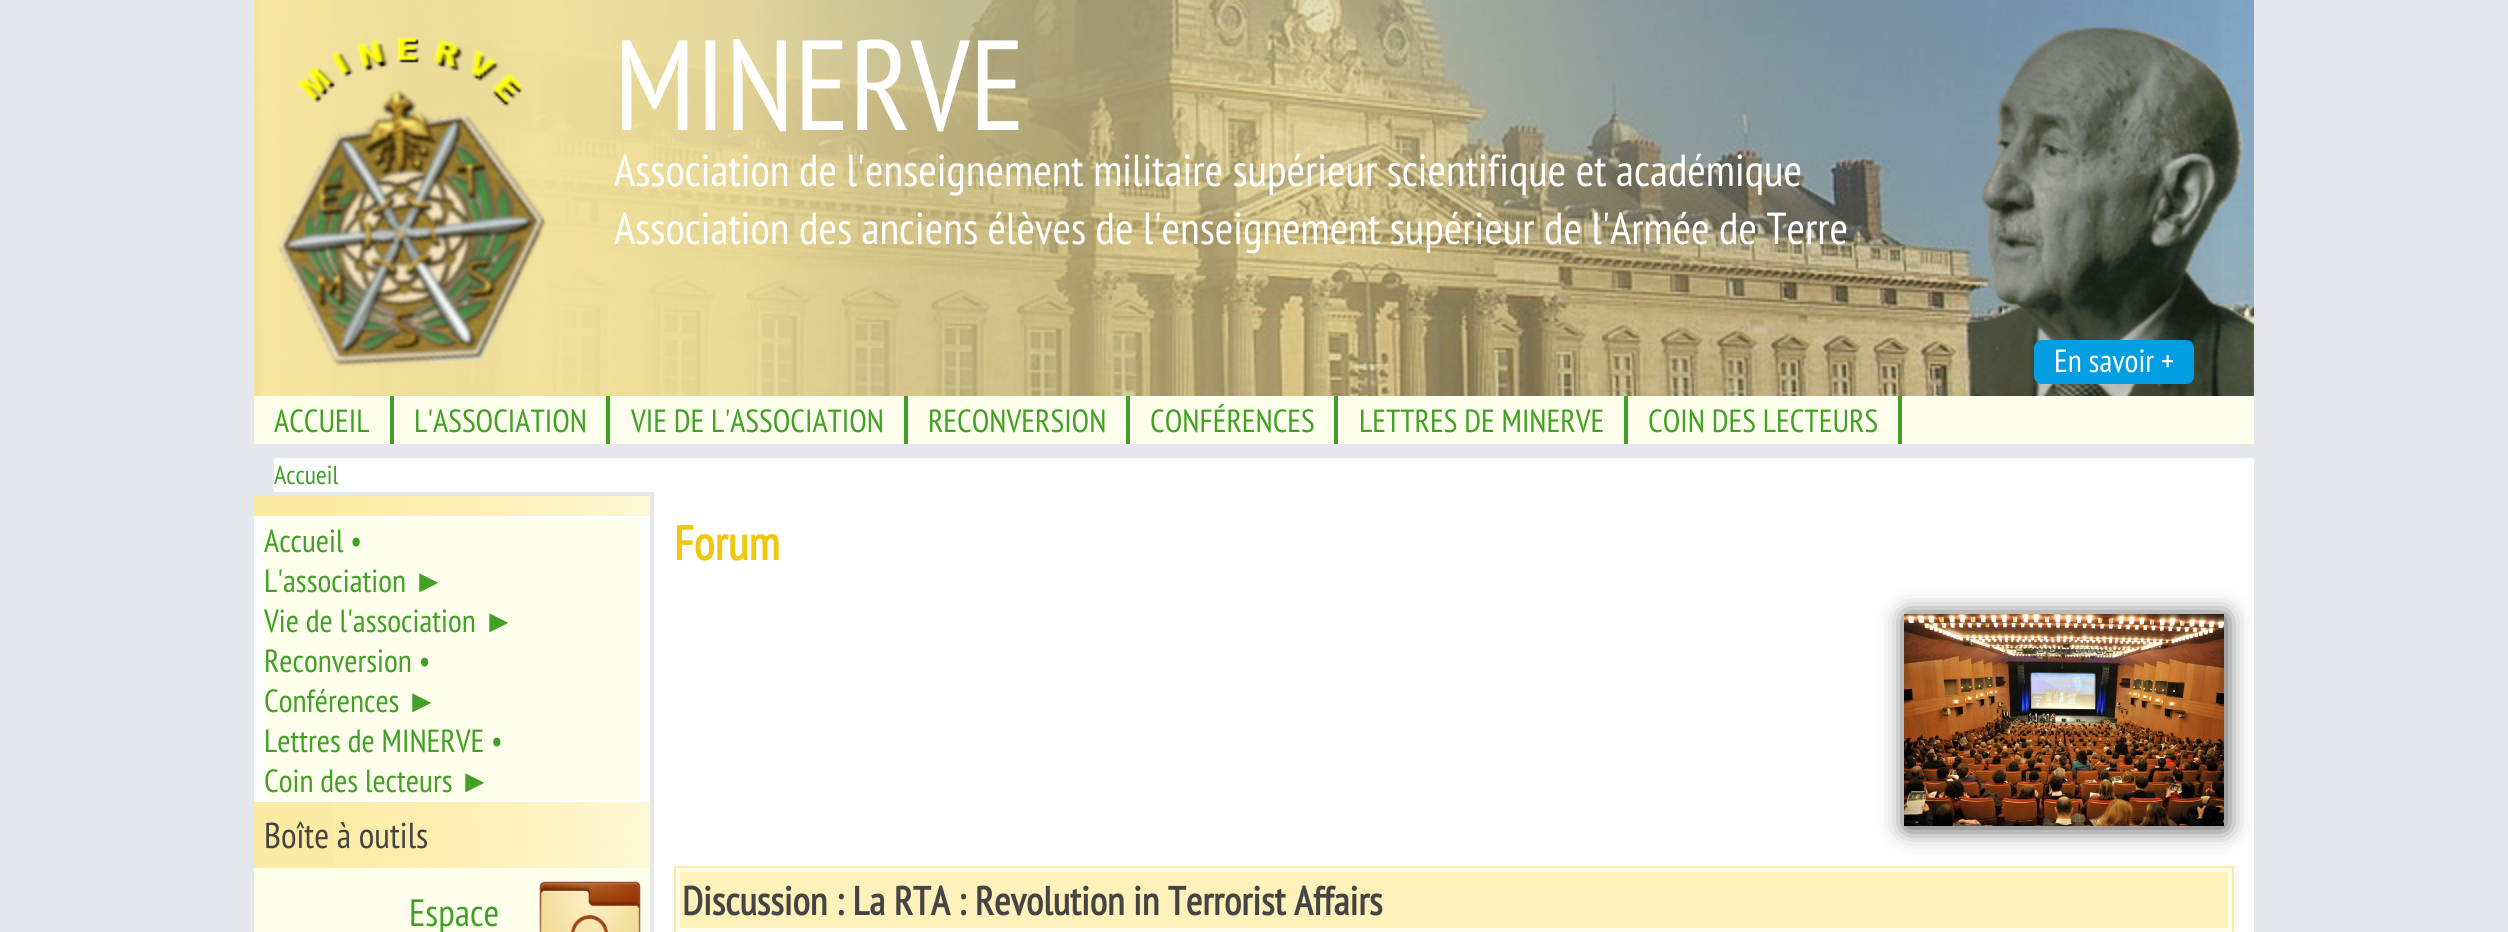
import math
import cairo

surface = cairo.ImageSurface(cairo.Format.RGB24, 2508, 932)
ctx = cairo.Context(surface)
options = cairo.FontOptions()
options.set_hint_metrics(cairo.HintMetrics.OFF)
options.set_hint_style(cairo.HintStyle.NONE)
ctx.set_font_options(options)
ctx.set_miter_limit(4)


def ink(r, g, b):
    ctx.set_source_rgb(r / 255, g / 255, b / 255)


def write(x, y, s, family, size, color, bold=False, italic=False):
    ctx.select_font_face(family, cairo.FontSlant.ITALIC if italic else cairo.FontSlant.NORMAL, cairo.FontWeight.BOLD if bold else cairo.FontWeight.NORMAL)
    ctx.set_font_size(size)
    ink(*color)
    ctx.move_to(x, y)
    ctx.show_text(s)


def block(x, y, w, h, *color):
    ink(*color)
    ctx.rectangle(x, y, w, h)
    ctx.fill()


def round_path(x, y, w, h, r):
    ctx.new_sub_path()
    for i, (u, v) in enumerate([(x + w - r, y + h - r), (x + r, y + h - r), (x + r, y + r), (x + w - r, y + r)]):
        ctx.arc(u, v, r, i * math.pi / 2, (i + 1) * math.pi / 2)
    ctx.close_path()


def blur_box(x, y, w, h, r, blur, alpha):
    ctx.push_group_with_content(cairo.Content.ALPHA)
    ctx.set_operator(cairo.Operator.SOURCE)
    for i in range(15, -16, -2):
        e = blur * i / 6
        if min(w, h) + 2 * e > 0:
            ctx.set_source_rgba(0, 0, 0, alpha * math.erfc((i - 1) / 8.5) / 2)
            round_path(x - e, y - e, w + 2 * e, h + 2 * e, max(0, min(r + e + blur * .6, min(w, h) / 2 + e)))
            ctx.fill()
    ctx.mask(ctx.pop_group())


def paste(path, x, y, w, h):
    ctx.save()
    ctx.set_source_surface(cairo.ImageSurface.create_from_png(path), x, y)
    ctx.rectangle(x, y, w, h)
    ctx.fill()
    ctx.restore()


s1 = dict(family="PT Sans Narrow", size=128, color=(255, 255, 255))
s2 = dict(family="PT Sans Narrow", size=44.8, color=(255, 255, 255))
s3 = dict(family="PT Sans Narrow", size=32, color=(255, 255, 255))
s4 = dict(family="PT Sans Narrow", size=32, color=(65, 160, 37))
s5 = dict(family="PT Sans Narrow", size=26, color=(65, 160, 37))
s6 = dict(family="Liberation Sans", size=32, color=(65, 160, 37))
s7 = dict(family="PT Sans Narrow", size=36, color=(68, 68, 68))
s8 = dict(family="PT Sans Narrow", size=38, color=(65, 160, 37))
s9 = dict(family="PT Sans Narrow", size=48, color=(239, 199, 13), bold=True)
s10 = dict(family="PT Sans Narrow", size=40, color=(68, 68, 68), bold=True)

ink(228, 231, 236)
ctx.paint()
paste("pic2.png", 325, 0, 1929, 396)
paste("pic1.png", 254, 0, 1967, 396)
write(614, 130, "MINERVE", **s1)
write(614, 186, "Association de l'enseignement militaire supérieur scientifique et académique", **s2)
write(614, 244, "Association des anciens élèves de l'enseignement supérieur de l'Armée de Terre", **s2)
ink(2, 158, 227)
round_path(2034, 340, 160, 44, 8)
ctx.fill()
write(2054, 372, "En savoir +", **s3)
block(254, 396, 2000, 48, 255, 255, 238)
block(390, 396, 4, 48, 65, 160, 37)
write(274, 432, "ACCUEIL", **s4)
block(606, 396, 4, 48, 65, 160, 37)
write(414, 432, "L'ASSOCIATION", **s4)
block(904, 396, 4, 48, 65, 160, 37)
write(631, 432, "VIE DE L'ASSOCIATION", **s4)
block(1126, 396, 4, 48, 65, 160, 37)
write(928, 432, "RECONVERSION", **s4)
block(1334, 396, 4, 48, 65, 160, 37)
write(1150, 432, "CONFÉRENCES", **s4)
block(1624, 396, 4, 48, 65, 160, 37)
write(1359, 432, "LETTRES DE MINERVE", **s4)
block(1898, 396, 4, 48, 65, 160, 37)
write(1648, 432, "COIN DES LECTEURS", **s4)
block(274, 458, 1980, 34, 255, 255, 255)
write(274, 484, "Accueil", **s5)
block(254, 496, 81, 20, 253, 235, 163)
paste("pic3.png", 335, 496, 315, 20)
block(254, 516, 396, 286, 255, 255, 255)
block(264, 520, 376, 280, 255, 255, 238)
write(264, 552, "Accueil •", **s4)
write(264, 592, "L'association", **s4)
write(413, 592, "►", **s6)
write(264, 632, "Vie de l'association", **s4)
write(483, 632, "►", **s6)
write(264, 672, "Reconversion •", **s4)
write(264, 712, "Conférences", **s4)
write(406, 712, "►", **s6)
write(264, 752, "Lettres de MINERVE •", **s4)
write(264, 792, "Coin des lecteurs", **s4)
write(459, 792, "►", **s6)
block(254, 802, 80, 66, 253, 235, 163)
paste("pic4.png", 334, 802, 316, 66)
write(264, 848, "Boîte à outils", **s7)
block(254, 868, 396, 64, 255, 255, 238)
write(409, 926, "Espace", **s8)
paste("pic5.png", 539, 881, 102, 51)
block(654, 492, 1600, 440, 255, 255, 255)
write(674, 560, "Forum", **s9)
ink(68, 68, 68)
blur_box(1906, 616, 320, 212, 0, 12, 1)
paste("pic6.png", 1904, 614, 320, 212)
ink(255, 255, 238)
ctx.rectangle(675, 867, 1558, 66)
ctx.fill_preserve()
ink(253, 235, 163)
ctx.stroke()
block(680, 872, 1548, 56, 254, 241, 186)
write(682, 915, "Discussion : La RTA : Revolution in Terrorist Affairs", **s10)
surface.write_to_png("screenshot.png")
